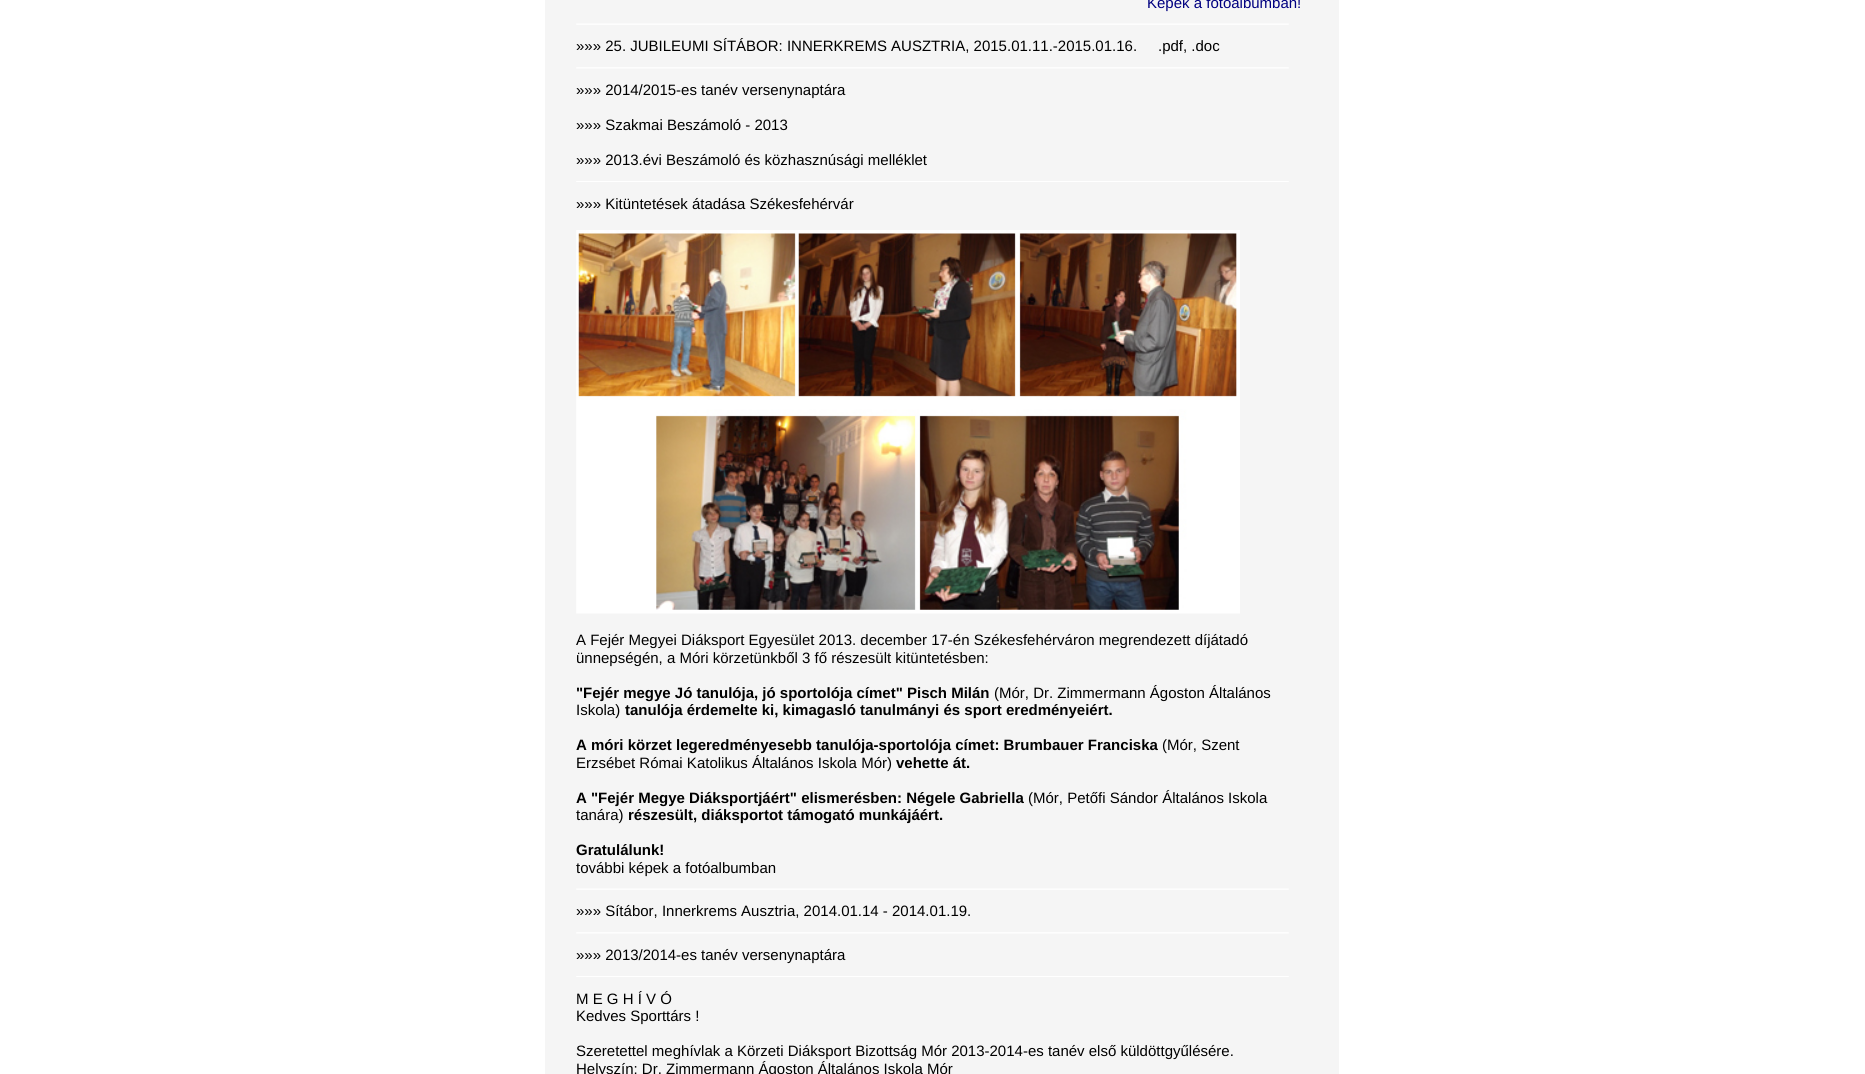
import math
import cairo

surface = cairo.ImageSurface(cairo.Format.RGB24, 1865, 1074)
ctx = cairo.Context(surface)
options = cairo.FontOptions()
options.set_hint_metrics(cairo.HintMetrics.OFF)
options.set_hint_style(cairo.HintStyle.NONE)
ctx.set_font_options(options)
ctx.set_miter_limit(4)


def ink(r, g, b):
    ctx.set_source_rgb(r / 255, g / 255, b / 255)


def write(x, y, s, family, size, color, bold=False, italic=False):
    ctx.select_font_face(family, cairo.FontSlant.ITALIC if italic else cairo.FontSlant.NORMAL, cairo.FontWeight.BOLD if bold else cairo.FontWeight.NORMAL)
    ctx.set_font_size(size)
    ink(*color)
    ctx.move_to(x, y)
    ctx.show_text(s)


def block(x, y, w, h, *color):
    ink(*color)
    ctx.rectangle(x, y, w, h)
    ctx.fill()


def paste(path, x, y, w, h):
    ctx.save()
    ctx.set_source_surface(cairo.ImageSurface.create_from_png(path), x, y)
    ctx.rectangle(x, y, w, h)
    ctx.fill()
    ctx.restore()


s1 = dict(family="Liberation Sans", size=15, color=(0, 0, 128))
s2 = dict(family="Liberation Sans", size=15, color=(0, 0, 0))
s3 = dict(family="Liberation Sans", size=15, color=(0, 0, 0), bold=True)

ink(255, 255, 255)
ctx.paint()
block(545, 0, 794, 1074, 245, 245, 245)
write(1147, 8, "Képek a fotóalbumban!", **s1)
paste("pic1.png", 576, 23, 713, 2)
write(576, 51, "»»» 25. JUBILEUMI SÍTÁBOR: INNERKREMS AUSZTRIA, 2015.01.11.-2015.01.16.", **s2)
write(1158, 51, ".pdf, .doc", **s2)
paste("pic2.png", 576, 67, 713, 2)
write(576, 95, "»»» 2014/2015-es tanév versenynaptára", **s2)
write(576, 130, "»»» Szakmai Beszámoló - 2013", **s2)
write(576, 165, "»»» 2013.évi Beszámoló és közhasznúsági melléklet", **s2)
paste("pic3.png", 576, 181, 713, 1)
write(576, 209, "»»» Kitüntetések átadása Székesfehérvár", **s2)
paste("pic4.png", 576, 230, 664, 384)
write(576, 645, "A Fejér Megyei Diáksport Egyesület 2013. december 17-én Székesfehérváron megrendezett díjátadó", **s2)
write(576, 663, "ünnepségén, a Móri körzetünkből 3 fő részesült kitüntetésben:", **s2)
write(576, 698, "\"Fejér megye Jó tanulója, jó sportolója címet\" Pisch Milán", **s3)
write(994, 698, "(Mór, Dr. Zimmermann Ágoston Általános", **s2)
write(576, 715, "Iskola)", **s2)
write(625, 715, "tanulója érdemelte ki, kimagasló tanulmányi és sport eredményeiért.", **s3)
write(576, 750, "A móri körzet legeredményesebb tanulója-sportolója címet: Brumbauer Franciska", **s3)
write(1162, 750, "(Mór, Szent", **s2)
write(576, 768, "Erzsébet Római Katolikus Általános Iskola Mór)", **s2)
write(896, 768, "vehette át.", **s3)
write(576, 803, "A \"Fejér Megye Diáksportjáért\" elismerésben: Négele Gabriella", **s3)
write(1028, 803, "(Mór, Petőfi Sándor Általános Iskola", **s2)
write(576, 820, "tanára)", **s2)
write(628, 820, "részesült, diáksportot támogató munkájáért.", **s3)
write(576, 855, "Gratulálunk!", **s3)
write(576, 873, "további képek a fotóalbumban", **s2)
paste("pic1.png", 576, 888, 713, 2)
write(576, 916, "»»» Sítábor, Innerkrems Ausztria, 2014.01.14 - 2014.01.19.", **s2)
paste("pic2.png", 576, 932, 713, 2)
write(576, 960, "»»» 2013/2014-es tanév versenynaptára", **s2)
paste("pic3.png", 576, 976, 713, 1)
write(576, 1004, "M E G H Í V Ó", **s2)
write(576, 1021, "Kedves Sporttárs !", **s2)
write(576, 1056, "Szeretettel meghívlak a Körzeti Diáksport Bizottság Mór 2013-2014-es tanév első küldöttgyűlésére.", **s2)
write(576, 1074, "Helyszín: Dr. Zimmermann Ágoston Általános Iskola Mór", **s2)
surface.write_to_png("screenshot.png")
